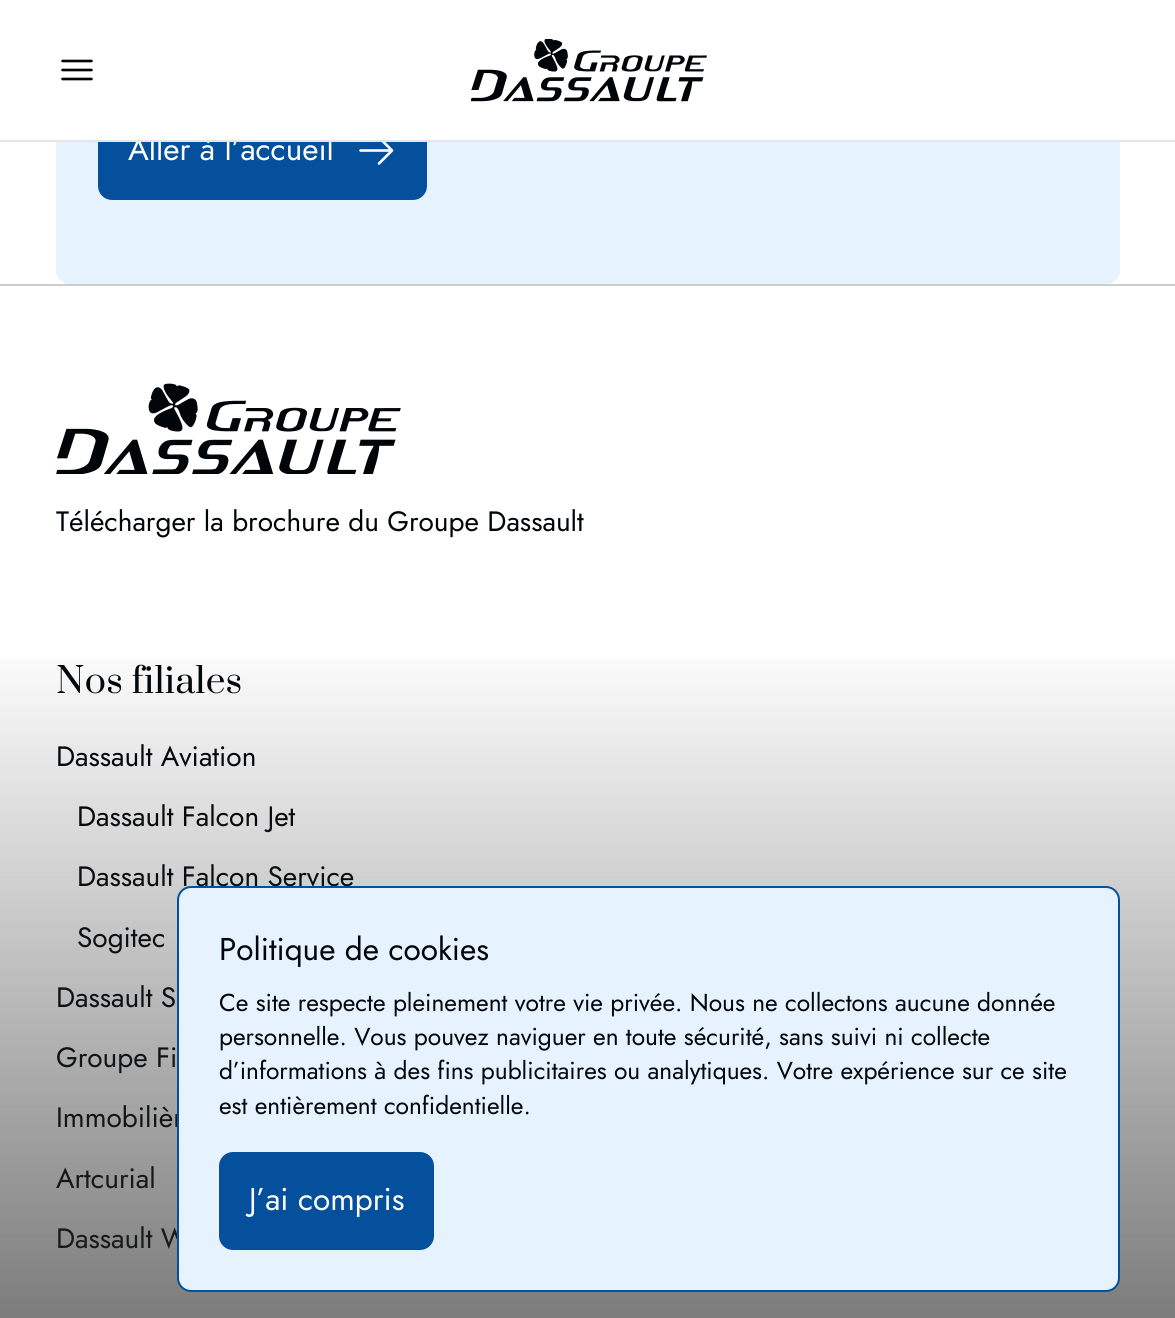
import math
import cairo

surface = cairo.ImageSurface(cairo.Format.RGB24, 1175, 1318)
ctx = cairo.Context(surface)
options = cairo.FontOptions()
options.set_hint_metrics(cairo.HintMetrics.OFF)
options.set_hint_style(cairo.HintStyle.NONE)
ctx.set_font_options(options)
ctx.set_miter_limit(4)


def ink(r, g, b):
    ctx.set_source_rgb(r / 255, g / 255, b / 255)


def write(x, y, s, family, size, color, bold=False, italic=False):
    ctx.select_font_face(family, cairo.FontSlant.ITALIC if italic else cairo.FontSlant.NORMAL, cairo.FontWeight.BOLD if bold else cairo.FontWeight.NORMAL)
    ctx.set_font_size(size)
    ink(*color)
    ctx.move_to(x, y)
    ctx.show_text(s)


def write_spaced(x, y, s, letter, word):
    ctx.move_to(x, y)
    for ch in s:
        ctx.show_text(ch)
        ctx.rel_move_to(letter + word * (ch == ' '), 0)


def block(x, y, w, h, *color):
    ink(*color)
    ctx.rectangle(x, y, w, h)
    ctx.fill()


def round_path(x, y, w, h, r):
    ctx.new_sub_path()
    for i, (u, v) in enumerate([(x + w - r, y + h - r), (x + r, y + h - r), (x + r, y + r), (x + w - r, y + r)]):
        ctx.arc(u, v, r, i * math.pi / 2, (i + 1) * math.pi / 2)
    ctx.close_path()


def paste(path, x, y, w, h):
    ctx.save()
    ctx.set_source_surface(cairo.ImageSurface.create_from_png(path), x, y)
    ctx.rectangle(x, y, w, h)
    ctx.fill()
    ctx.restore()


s1 = dict(family="Jost", size=31.5, color=(255, 255, 255))
s2 = dict(family="Jost", size=28, color=(0, 5, 9))
s3 = dict(family="Jost", size=31.5, color=(0, 5, 9))
s4 = dict(family="Jost", size=24.5, color=(0, 5, 9))

ink(255, 255, 255)
ctx.paint()
ink(230, 242, 254)
round_path(56, -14, 1064, 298, 14)
ctx.fill()
ink(4, 80, 156)
round_path(99, 103, 327, 96, 13)
ctx.fill_preserve()
ctx.stroke()
write(128, 160, "Aller à l’accueil", **s1)
ctx.new_path()
ctx.move_to(379, 137.5)
ctx.line_to(392, 150.5)
ctx.move_to(392, 150.5)
ctx.line_to(379, 163.5)
ctx.move_to(392, 150.5)
ctx.line_to(360.5, 150.5)
ctx.set_line_width(2.6)
ctx.set_line_cap(cairo.LineCap.ROUND)
ctx.set_line_join(cairo.LineJoin.ROUND)
ctx.stroke()
block(0, 140, 1175, 2, 229, 229, 229)
block(56, 0, 1064, 140, 255, 255, 255)
ctx.new_path()
ctx.move_to(62.5, 61)
ctx.line_to(91.5, 61)
ctx.move_to(62.5, 70)
ctx.line_to(91.5, 70)
ctx.move_to(62.5, 79)
ctx.line_to(91.5, 79)
ink(0, 5, 9)
ctx.stroke()
paste("pic1.png", 471, 39, 236, 63)
block(0, 284, 1175, 2, 204, 204, 204)
paste("pic2.png", 56, 383, 345, 91)
write(56, 531, "Télécharger la brochure du Groupe Dassault", **s2)
ctx.select_font_face("Prata")
ctx.set_font_size(35)
write_spaced(56, 693, "Nos filiales", 0.3, 0)
write(56, 766, "Dassault Aviation", **s2)
write(77, 826, "Dassault Falcon Jet", **s2)
write(77, 886, "Dassault Falcon Service", **s2)
write(77, 947, "Sogitec", **s2)
write(56, 1007, "Dassault S", **s2)
write(56, 1067, "Groupe Fi", **s2)
write(56, 1127, "Immobilièr", **s2)
write(56, 1188, "Artcurial", **s2)
write(56, 1248, "Dassault W", **s2)
gradient = cairo.LinearGradient(588, 635, 588, 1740)
gradient.add_color_stop_rgba(0, 0.169, 0.169, 0.169, 0)
gradient.add_color_stop_rgba(1, 0.169, 0.169, 0.169, 1)
ctx.set_source(gradient)
ctx.rectangle(0, 659, 1175, 659)
ctx.fill()
ink(230, 242, 254)
round_path(178, 887, 941, 404, 13)
ctx.fill_preserve()
ink(4, 80, 156)
ctx.set_line_width(2)
ctx.set_line_cap(cairo.LineCap.BUTT)
ctx.set_line_join(cairo.LineJoin.MITER)
ctx.stroke()
write(219, 960, "Politique de cookies", **s3)
write(219, 1011, "Ce site respecte pleinement votre vie privée. Nous ne collectons aucune donnée", **s4)
write(219, 1045, "personnelle. Vous pouvez naviguer en toute sécurité, sans suivi ni collecte", **s4)
write(219, 1079, "d’informations à des fins publicitaires ou analytiques. Votre expérience sur ce site", **s4)
write(219, 1114, "est entièrement confidentielle.", **s4)
ink(4, 80, 156)
round_path(220, 1153, 213, 96, 13)
ctx.fill_preserve()
ctx.stroke()
write(249, 1210, "J’ai compris", **s1)
surface.write_to_png("screenshot.png")
